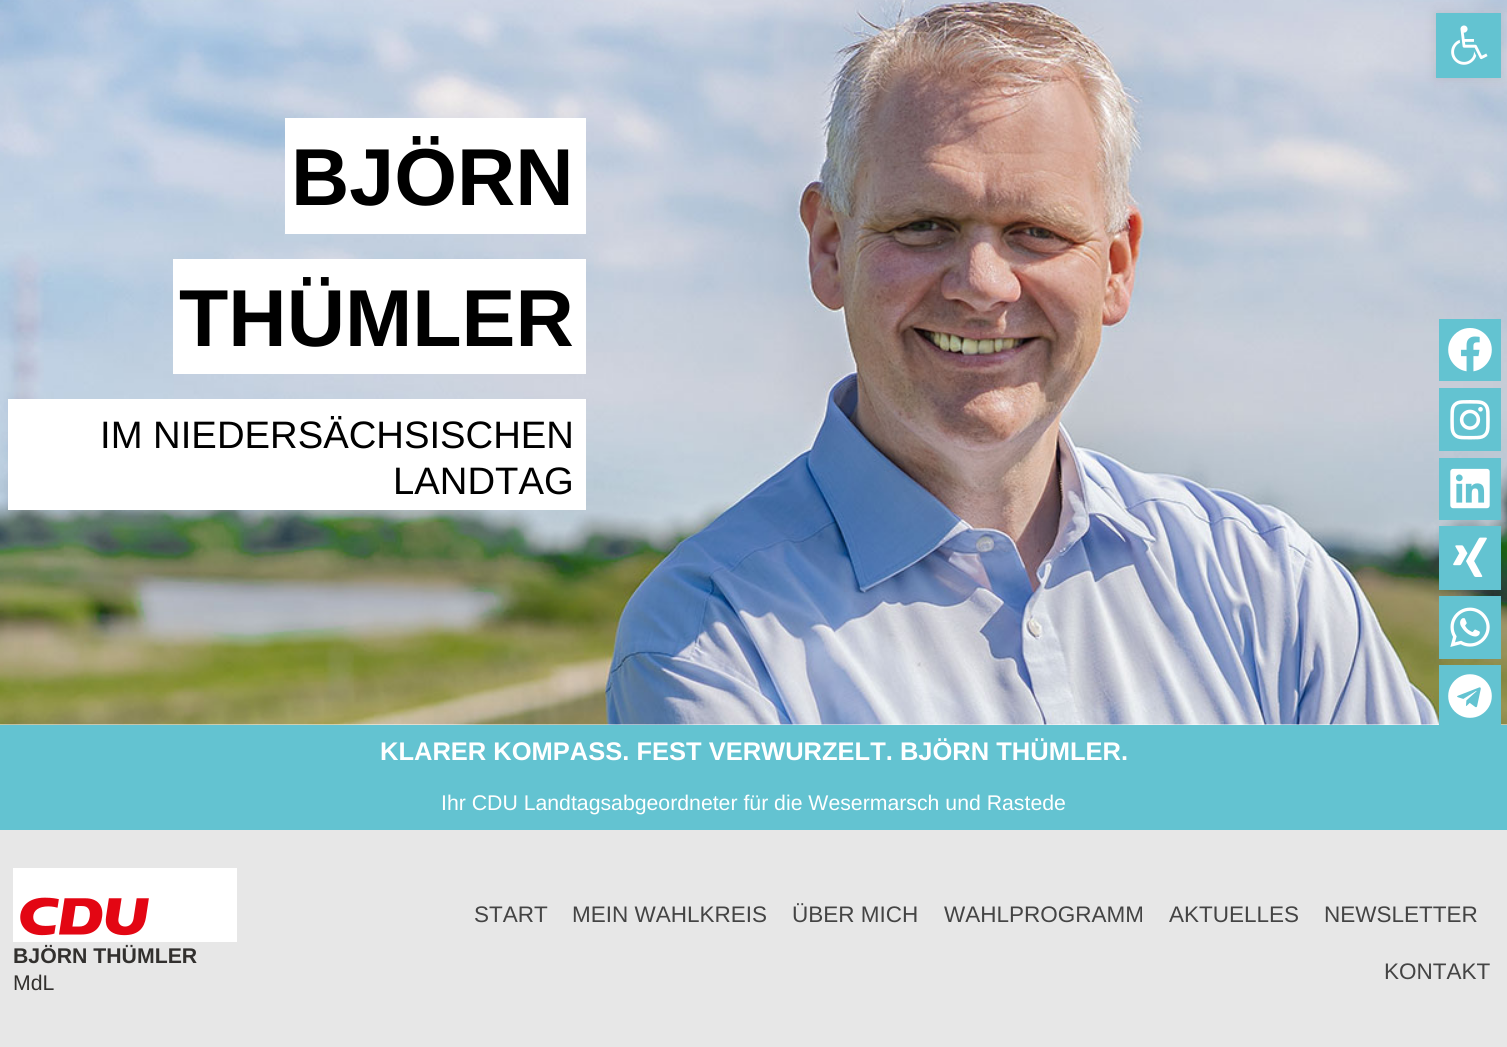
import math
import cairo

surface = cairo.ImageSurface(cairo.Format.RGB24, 1507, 1047)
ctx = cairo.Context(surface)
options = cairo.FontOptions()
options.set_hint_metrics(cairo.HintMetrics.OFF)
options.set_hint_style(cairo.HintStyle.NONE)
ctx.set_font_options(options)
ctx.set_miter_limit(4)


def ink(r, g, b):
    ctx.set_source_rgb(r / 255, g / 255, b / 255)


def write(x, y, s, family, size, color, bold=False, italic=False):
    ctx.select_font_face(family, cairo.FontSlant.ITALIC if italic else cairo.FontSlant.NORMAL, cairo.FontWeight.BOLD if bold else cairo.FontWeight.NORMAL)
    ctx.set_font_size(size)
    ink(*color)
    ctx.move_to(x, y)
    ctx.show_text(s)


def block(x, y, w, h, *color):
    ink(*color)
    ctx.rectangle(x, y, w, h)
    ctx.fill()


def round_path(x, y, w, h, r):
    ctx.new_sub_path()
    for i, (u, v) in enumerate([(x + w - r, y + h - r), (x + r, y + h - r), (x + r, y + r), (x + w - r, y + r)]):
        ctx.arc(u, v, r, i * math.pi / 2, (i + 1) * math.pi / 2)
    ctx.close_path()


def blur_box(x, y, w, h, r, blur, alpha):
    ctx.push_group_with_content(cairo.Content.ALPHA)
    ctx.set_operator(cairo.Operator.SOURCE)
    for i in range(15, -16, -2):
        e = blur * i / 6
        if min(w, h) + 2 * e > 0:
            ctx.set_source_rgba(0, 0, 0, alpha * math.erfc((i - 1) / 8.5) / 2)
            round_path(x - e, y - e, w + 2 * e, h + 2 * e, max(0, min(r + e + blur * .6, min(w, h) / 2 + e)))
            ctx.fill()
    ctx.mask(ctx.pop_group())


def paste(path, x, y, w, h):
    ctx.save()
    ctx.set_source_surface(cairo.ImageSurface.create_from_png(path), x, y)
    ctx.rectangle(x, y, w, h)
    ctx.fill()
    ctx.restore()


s1 = dict(family="Liberation Sans", size=80.75, color=(0, 0, 0), bold=True)
s2 = dict(family="Liberation Sans", size=38.25, color=(0, 0, 0))
s3 = dict(family="Liberation Sans", size=25.5, color=(255, 255, 255), bold=True)
s4 = dict(family="Liberation Sans", size=21.25, color=(255, 255, 255))
s5 = dict(family="Liberation Sans", size=21.25, color=(50, 48, 46), bold=True)
s6 = dict(family="Liberation Sans", size=21.25, color=(50, 48, 46))
s7 = dict(family="Liberation Sans", size=22.5, color=(68, 68, 68))

ink(255, 255, 255)
ctx.paint()
paste("pic2.png", 0, 0, 1507, 725)
ink(0, 0, 0)
blur_box(1436, 13, 65, 65, 0, 6, 0.1)
block(1436, 13, 65, 65, 99, 195, 209)
paste("pic1.png", 1451, 25, 37, 40)
block(285, 118, 301, 116, 255, 255, 255)
write(291, 205, "BJÖRN", **s1)
block(173, 259, 413, 115, 255, 255, 255)
write(179, 346, "THÜMLER", **s1)
block(8, 399, 578, 111, 255, 255, 255)
write(100, 448, "IM NIEDERSÄCHSISCHEN", **s2)
write(393, 494, "LANDTAG", **s2)
block(0, 725, 1507, 105, 99, 195, 209)
write(380, 760, "KLARER KOMPASS. FEST VERWURZELT. BJÖRN THÜMLER.", **s3)
write(441, 810, "Ihr CDU Landtagsabgeordneter für die Wesermarsch und Rastede", **s4)
block(0, 830, 1507, 217, 231, 231, 231)
paste("pic3.png", 13, 868, 224, 74)
write(13, 963, "BJÖRN THÜMLER", **s5)
write(13, 990, "MdL", **s6)
write(474, 922, "START", **s7)
write(572, 922, "MEIN WAHLKREIS", **s7)
write(792, 922, "ÜBER MICH", **s7)
write(944, 922, "WAHLPROGRAMM", **s7)
write(1169, 922, "AKTUELLES", **s7)
write(1324, 922, "NEWSLETTER", **s7)
write(1384, 979, "KONTAKT", **s7)
block(1439, 319, 62, 62, 99, 195, 209)
paste("pic4.png", 1448, 328, 44, 44)
block(1439, 388, 62, 63, 99, 195, 209)
paste("pic5.png", 1450, 400, 40, 40)
block(1439, 458, 62, 62, 99, 195, 209)
paste("pic6.png", 1450, 468, 40, 41)
block(1439, 526, 62, 64, 99, 195, 209)
paste("pic7.png", 1453, 537, 34, 40)
block(1439, 596, 62, 63, 99, 195, 209)
paste("pic8.png", 1450, 607, 40, 40)
block(1439, 665, 62, 60, 99, 195, 209)
paste("pic9.png", 1448, 674, 44, 44)
surface.write_to_png("screenshot.png")
